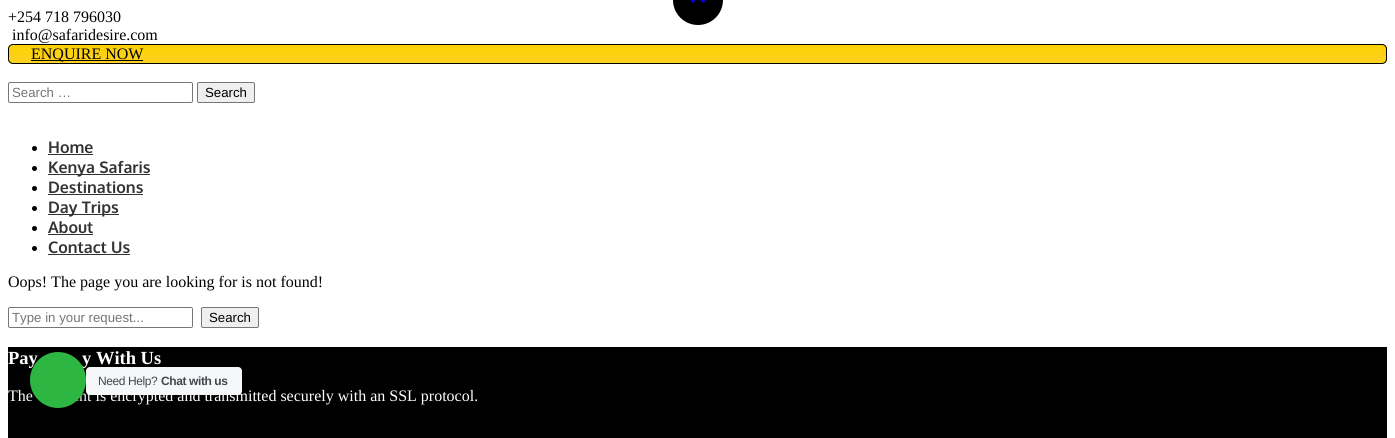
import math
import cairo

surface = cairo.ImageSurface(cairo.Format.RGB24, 1395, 438)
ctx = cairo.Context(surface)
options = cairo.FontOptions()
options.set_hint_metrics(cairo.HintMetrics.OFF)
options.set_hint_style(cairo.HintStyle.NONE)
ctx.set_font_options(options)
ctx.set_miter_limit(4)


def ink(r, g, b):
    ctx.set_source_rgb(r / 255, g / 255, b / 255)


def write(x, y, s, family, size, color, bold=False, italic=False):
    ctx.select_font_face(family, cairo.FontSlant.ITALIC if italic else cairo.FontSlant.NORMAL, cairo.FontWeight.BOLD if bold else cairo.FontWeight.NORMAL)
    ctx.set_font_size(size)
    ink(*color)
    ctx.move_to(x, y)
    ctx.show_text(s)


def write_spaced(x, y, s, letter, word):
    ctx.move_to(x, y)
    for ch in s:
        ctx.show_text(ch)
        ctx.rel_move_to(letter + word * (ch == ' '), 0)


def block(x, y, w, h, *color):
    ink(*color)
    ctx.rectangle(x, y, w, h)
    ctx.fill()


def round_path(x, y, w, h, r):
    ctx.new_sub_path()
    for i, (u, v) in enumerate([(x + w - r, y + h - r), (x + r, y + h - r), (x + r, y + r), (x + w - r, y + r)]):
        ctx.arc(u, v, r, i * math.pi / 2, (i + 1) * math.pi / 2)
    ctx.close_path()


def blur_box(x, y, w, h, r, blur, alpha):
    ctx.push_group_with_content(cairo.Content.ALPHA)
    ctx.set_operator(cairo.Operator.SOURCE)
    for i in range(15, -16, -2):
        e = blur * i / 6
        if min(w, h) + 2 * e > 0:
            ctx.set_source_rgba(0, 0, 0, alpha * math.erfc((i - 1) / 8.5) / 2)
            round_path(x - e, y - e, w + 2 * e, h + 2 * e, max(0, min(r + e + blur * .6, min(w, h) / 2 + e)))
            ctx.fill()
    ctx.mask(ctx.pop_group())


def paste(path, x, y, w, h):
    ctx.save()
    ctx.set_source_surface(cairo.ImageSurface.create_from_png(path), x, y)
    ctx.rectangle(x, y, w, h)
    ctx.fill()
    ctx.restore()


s1 = dict(family="Liberation Serif", size=16, color=(0, 0, 0))
s2 = dict(family="Liberation Sans", size=13.25, color=(117, 117, 117))
s3 = dict(family="Liberation Sans", size=13.25, color=(0, 0, 0))
s4 = dict(family="Oxygen", size=16, color=(51, 51, 51), bold=True)
s5 = dict(family="Liberation Serif", size=18.5, color=(255, 255, 255), bold=True)
s6 = dict(family="Liberation Serif", size=16, color=(255, 255, 255))

ink(255, 255, 255)
ctx.paint()
write(8, 22, "+254 718 796030", **s1)
write(12, 40, "info@safaridesire.com", **s1)
ctx.save()
round_path(8, 44, 1379, 20, 5)
ctx.clip()
gradient = cairo.LinearGradient(698, 45, 698, 63)
gradient.add_color_stop_rgba(0, 0.996, 0.82, 0.004, 1)
gradient.add_color_stop_rgba(1, 0.992, 0.82, 0.137, 1)
ctx.set_source(gradient)
ctx.rectangle(8, 45, 1379, 18)
ctx.fill()
ctx.restore()
round_path(8.5, 44.5, 1378, 19, 4.5)
ctx.set_line_width(1)
ctx.stroke()
block(31, 60, 112, 1, 0, 0, 0)
write(31, 59, "ENQUIRE NOW", **s1)
round_path(8.5, 82.5, 184, 20, 1.5)
ink(118, 118, 118)
ctx.stroke()
write(12, 97, "Search …", **s2)
ink(239, 239, 239)
round_path(197.5, 82.5, 57, 20, 1.5)
ctx.fill_preserve()
ink(118, 118, 118)
ctx.stroke()
write(205, 97, "Search", **s3)
ctx.new_path()
ctx.arc(34.5, 148.5, 2.5, 0, 2 * math.pi)
ctx.fill()
write(48, 153, "Home", **s4)
block(48, 154, 45, 1, 51, 51, 51)
ink(0, 0, 0)
ctx.new_path()
ctx.arc(34.5, 168.5, 2.5, 0, 2 * math.pi)
ctx.fill()
block(48, 174, 102, 1, 51, 51, 51)
write(48, 173, "Kenya Safaris", **s4)
ink(0, 0, 0)
ctx.new_path()
ctx.arc(34.5, 188.5, 2.5, 0, 2 * math.pi)
ctx.fill()
write(48, 193, "Destinations", **s4)
block(48, 194, 95, 1, 51, 51, 51)
ink(0, 0, 0)
ctx.new_path()
ctx.arc(34.5, 208.5, 2.5, 0, 2 * math.pi)
ctx.fill()
block(48, 214, 71, 1, 51, 51, 51)
write(48, 213, "Day Trips", **s4)
ink(0, 0, 0)
ctx.new_path()
ctx.arc(34.5, 228.5, 2.5, 0, 2 * math.pi)
ctx.fill()
write(48, 233, "About", **s4)
block(48, 234, 45, 1, 51, 51, 51)
ink(0, 0, 0)
ctx.new_path()
ctx.arc(34.5, 248.5, 2.5, 0, 2 * math.pi)
ctx.fill()
write(48, 253, "Contact Us", **s4)
block(48, 254, 82, 1, 51, 51, 51)
write(8, 287, "Oops! The page you are looking for is not found!", **s1)
round_path(8.5, 307.5, 184, 20, 1.5)
ink(118, 118, 118)
ctx.stroke()
write(12, 322, "Type in your request...", **s2)
ink(239, 239, 239)
round_path(201.5, 307.5, 57, 20, 1.5)
ctx.fill_preserve()
ink(118, 118, 118)
ctx.stroke()
write(209, 322, "Search", **s3)
block(8, 347, 1379, 91, 0, 0, 0)
ctx.new_path()
ctx.arc(698, 0, 25, 0, 2 * math.pi)
ctx.fill()
paste("pic1.png", 690, 0, 16, 3)
write(8, 364, "Pay", **s5)
write(82, 364, "y With Us", **s5)
write(8, 401, "The", **s6)
write(72, 401, "ent is encrypted and transmitted securely with an SSL protocol.", **s6)
ink(0, 0, 0)
blur_box(28, 356, 60, 60, 30, 4, 0.14)
ink(45, 183, 66)
ctx.arc(58, 380, 28, 0, 2 * math.pi)
ctx.fill()
ink(245, 247, 249)
round_path(86, 367, 156, 28, 4)
ctx.fill()
ctx.select_font_face("Liberation Sans")
ctx.set_font_size(12)
ink(67, 71, 78)
write_spaced(98, 385, "Need Help?", -0.4, 0)
ctx.select_font_face("Liberation Sans", cairo.FontSlant.NORMAL, cairo.FontWeight.BOLD)
write_spaced(161, 385, "Chat with us", -0.4, 0)
surface.write_to_png("screenshot.png")
